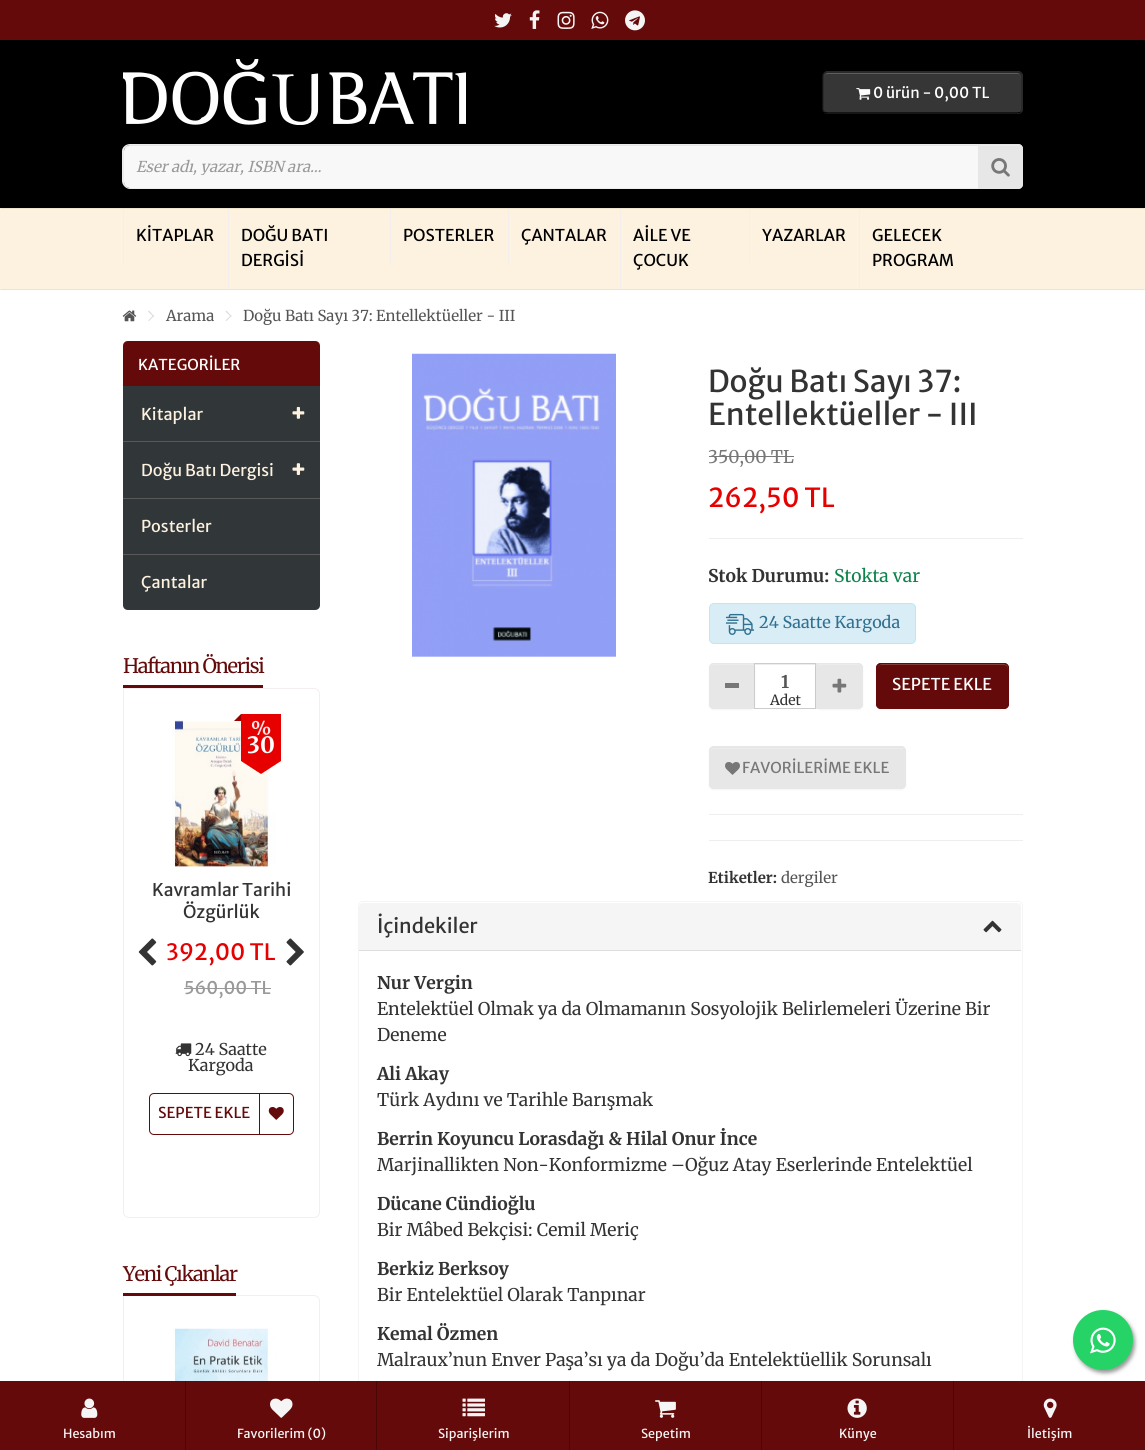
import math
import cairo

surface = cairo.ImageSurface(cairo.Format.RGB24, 1145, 1450)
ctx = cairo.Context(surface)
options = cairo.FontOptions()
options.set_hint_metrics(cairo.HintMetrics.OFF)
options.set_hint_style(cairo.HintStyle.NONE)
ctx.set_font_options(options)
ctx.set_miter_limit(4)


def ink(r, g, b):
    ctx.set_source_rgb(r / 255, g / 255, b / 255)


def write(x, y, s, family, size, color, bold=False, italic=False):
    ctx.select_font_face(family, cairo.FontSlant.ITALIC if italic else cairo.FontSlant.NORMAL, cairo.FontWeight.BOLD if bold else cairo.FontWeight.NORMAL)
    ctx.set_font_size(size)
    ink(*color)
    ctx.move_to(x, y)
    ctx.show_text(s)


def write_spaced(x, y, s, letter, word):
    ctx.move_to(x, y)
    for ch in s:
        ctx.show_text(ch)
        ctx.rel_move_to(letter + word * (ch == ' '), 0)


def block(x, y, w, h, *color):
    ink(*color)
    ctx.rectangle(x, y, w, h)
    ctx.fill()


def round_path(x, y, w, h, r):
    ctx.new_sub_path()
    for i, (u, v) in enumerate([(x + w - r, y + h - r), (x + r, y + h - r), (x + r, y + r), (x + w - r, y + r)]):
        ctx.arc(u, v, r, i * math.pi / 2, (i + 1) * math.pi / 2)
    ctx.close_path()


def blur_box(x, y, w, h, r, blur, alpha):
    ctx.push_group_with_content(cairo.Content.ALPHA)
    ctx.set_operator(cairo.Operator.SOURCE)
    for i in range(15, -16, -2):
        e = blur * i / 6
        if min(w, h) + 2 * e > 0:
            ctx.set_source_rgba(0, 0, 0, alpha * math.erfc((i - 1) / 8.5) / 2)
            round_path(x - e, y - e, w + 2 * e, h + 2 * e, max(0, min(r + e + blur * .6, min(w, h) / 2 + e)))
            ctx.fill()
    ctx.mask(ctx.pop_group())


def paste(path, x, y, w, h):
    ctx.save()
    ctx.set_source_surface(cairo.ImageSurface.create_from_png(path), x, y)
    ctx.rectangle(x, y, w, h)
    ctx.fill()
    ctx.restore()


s1 = dict(family="Merriweather Sans", size=15, color=(255, 255, 255))
s2 = dict(family="Merriweather", size=15, color=(153, 153, 153), italic=True)
s3 = dict(family="Merriweather Sans", size=16.25, color=(0, 0, 0))
s4 = dict(family="Merriweather", size=15, color=(85, 85, 85))
s5 = dict(family="Merriweather Sans", size=16.25, color=(252, 242, 223))
s6 = dict(family="Merriweather", size=19, color=(253, 230, 230), bold=True)
s7 = dict(family="Merriweather", size=22.5, color=(255, 255, 255), bold=True)
s8 = dict(family="Merriweather Sans", size=17.5, color=(51, 51, 51))
s9 = dict(family="Merriweather Sans", size=22.5, color=(230, 0, 0))
s10 = dict(family="Merriweather Sans", size=17.5, color=(153, 153, 153))
s11 = dict(family="Merriweather", size=16.25, color=(51, 51, 51))
s12 = dict(family="Merriweather Sans", size=15, color=(100, 10, 10))
s13 = dict(family="Merriweather Sans", size=30, color=(51, 51, 51))
s14 = dict(family="Merriweather", size=17.5, color=(119, 119, 119))
s15 = dict(family="Merriweather Sans", size=26.25, color=(230, 0, 0))
s16 = dict(family="Merriweather", size=17.5, color=(51, 51, 51), bold=True)
s17 = dict(family="Merriweather", size=17.5, color=(15, 131, 77))
s18 = dict(family="Merriweather", size=16.25, color=(49, 112, 143))
s19 = dict(family="Merriweather", size=17.5, color=(85, 85, 85), bold=True)
s20 = dict(family="Merriweather Sans", size=16.25, color=(255, 255, 255))
s21 = dict(family="Merriweather", size=14, color=(51, 51, 51))
s22 = dict(family="Merriweather Sans", size=15, color=(119, 119, 119))
s23 = dict(family="Merriweather", size=15, color=(51, 51, 51), bold=True)
s24 = dict(family="Merriweather Sans", size=20, color=(51, 51, 51))
s25 = dict(family="Merriweather", size=17.5, color=(51, 51, 51))
s26 = dict(family="Merriweather Sans", size=12.5, color=(245, 245, 245))

ink(255, 255, 255)
ctx.paint()
block(0, 40, 1145, 168, 0, 0, 0)
paste("pic1.png", 123, 59, 343, 66)
ink(54, 54, 54)
round_path(823, 71, 200, 43, 5)
ctx.fill()
ink(94, 94, 94)
ctx.new_path()
ctx.move_to(828, 74)
ctx.line_to(1018, 74)
ctx.curve_to(1020, 74, 1021, 75, 1021, 78)
ctx.line_to(1021, 77)
ctx.curve_to(1021, 75, 1019, 73, 1017, 73)
ctx.line_to(828, 73)
ctx.curve_to(826, 73, 824, 75, 824, 77)
ctx.line_to(824, 78)
ctx.curve_to(824, 75, 825, 74, 828, 74)
ctx.close_path()
ctx.fill()
ctx.new_path()
ctx.move_to(1020.5, 112)
ctx.curve_to(1020, 112.5, 1018.5, 113, 1017.5, 113)
ctx.line_to(827.5, 113)
ctx.curve_to(826.5, 113, 825, 112.5, 824.5, 112)
ink(0, 0, 0)
ctx.set_line_width(1.2)
ctx.stroke()
ctx.new_path()
ctx.move_to(824.5, 112)
ctx.curve_to(823.5, 111, 823, 110, 823, 109)
ctx.line_to(823, 76)
ctx.curve_to(823, 75, 823.5, 74, 824.5, 73)
ctx.curve_to(825, 72.5, 826.5, 72, 827.5, 72)
ctx.line_to(1017.5, 72)
ctx.curve_to(1018.5, 72, 1020, 72.5, 1020.5, 73)
ctx.curve_to(1021.5, 74, 1022, 75, 1022, 76)
ctx.line_to(1022, 109)
ctx.curve_to(1022, 110, 1021.5, 111, 1020.5, 112)
ink(34, 34, 34)
ctx.stroke()
paste("pic2.png", 856, 88, 15, 12)
write(873, 98, "0 ürün - 0,00 TL", **s1)
ink(248, 248, 248)
ctx.new_path()
ctx.move_to(130, 145)
ctx.line_to(979, 145)
ctx.line_to(979, 188)
ctx.line_to(130, 188)
ctx.curve_to(126.5, 188, 124, 185.5, 124, 182)
ctx.line_to(124, 151)
ctx.curve_to(124, 147.5, 126.5, 145, 130, 145)
ctx.close_path()
ctx.fill()
ctx.set_source_rgba(0, 0, 0, 0.07)
ctx.new_path()
ctx.move_to(130, 146)
ctx.line_to(979, 146)
ctx.line_to(979, 145)
ctx.line_to(130, 145)
ctx.curve_to(127, 145, 124, 148, 124, 151)
ctx.line_to(124, 152)
ctx.curve_to(124, 149, 127, 146, 130, 146)
ctx.close_path()
ctx.fill()
ink(237, 237, 237)
ctx.set_fill_rule(cairo.FillRule.EVEN_ODD)
ctx.new_path()
ctx.move_to(130, 144)
ctx.line_to(979, 144)
ctx.line_to(979, 189)
ctx.line_to(130, 189)
ctx.curve_to(126, 189, 122, 185, 122, 181)
ctx.line_to(122, 151)
ctx.curve_to(122, 147, 126, 144, 130, 144)
ctx.close_path()
ctx.move_to(130, 145)
ctx.line_to(979, 145)
ctx.line_to(979, 188)
ctx.line_to(130, 188)
ctx.curve_to(127, 188, 124, 185, 124, 181)
ctx.line_to(124, 151)
ctx.curve_to(124, 148, 127, 145, 130, 145)
ctx.close_path()
ctx.fill()
ctx.save()
ctx.set_fill_rule(cairo.FillRule.WINDING)
ctx.rectangle(136, 156, 830, 19)
ctx.clip()
write(136, 172, "Eser adı, yazar, ISBN ara...", **s2)
ctx.restore()
ink(231, 231, 231)
ctx.new_path()
ctx.move_to(978, 144)
ctx.line_to(1018, 144)
ctx.curve_to(1021, 144, 1023, 146, 1023, 149)
ctx.line_to(1023, 184)
ctx.curve_to(1023, 187, 1021, 189, 1018, 189)
ctx.line_to(978, 189)
ctx.close_path()
ctx.fill()
ink(236, 236, 236)
ctx.set_fill_rule(cairo.FillRule.WINDING)
ctx.new_path()
ctx.move_to(979, 146)
ctx.line_to(1018, 146)
ctx.curve_to(1020, 146, 1021, 148, 1021, 150)
ctx.line_to(1021, 149)
ctx.curve_to(1021, 147, 1019, 145, 1017, 145)
ctx.line_to(979, 145)
ctx.close_path()
ctx.fill()
ctx.new_path()
ctx.move_to(978.5, 144.5)
ctx.line_to(1018, 144.5)
ctx.curve_to(1020.5, 144.5, 1022.5, 146.5, 1022.5, 149)
ctx.line_to(1022.5, 184)
ctx.curve_to(1022.5, 186.5, 1020.5, 188.5, 1018, 188.5)
ctx.line_to(978.5, 188.5)
ctx.close_path()
ink(231, 231, 231)
ctx.set_line_width(1)
ctx.stroke()
paste("pic3.png", 991, 158, 19, 19)
block(0, 208, 1145, 82, 252, 242, 223)
ink(238, 227, 205)
ctx.new_path()
ctx.move_to(0, 208)
ctx.line_to(1145, 208)
ctx.line_to(1144, 209)
ctx.line_to(1, 209)
ctx.close_path()
ctx.fill()
ctx.new_path()
ctx.move_to(1145, 290)
ctx.line_to(0, 290)
ctx.line_to(1, 289)
ctx.line_to(1144, 289)
ctx.close_path()
ctx.fill()
block(123, 209, 1, 55, 244, 238, 238)
write(136, 241, "KİTAPLAR", **s3)
block(228, 209, 1, 80, 244, 238, 238)
write(241, 241, "DOĞU BATI", **s3)
write(241, 266, "DERGİSİ", **s3)
block(390, 209, 1, 55, 244, 238, 238)
write(403, 241, "POSTERLER", **s3)
block(508, 209, 1, 55, 244, 238, 238)
write(521, 241, "ÇANTALAR", **s3)
block(620, 209, 1, 80, 244, 238, 238)
write(633, 241, "AİLE VE", **s3)
write(633, 266, "ÇOCUK", **s3)
block(749, 209, 1, 55, 244, 238, 238)
write(762, 241, "YAZARLAR", **s3)
block(859, 209, 1, 80, 244, 238, 238)
write(872, 241, "GELECEK", **s3)
write(872, 266, "PROGRAM", **s3)
paste("pic4.png", 122, 310, 15, 12)
ink(221, 221, 221)
ctx.new_path()
ctx.move_to(148, 311.5)
ctx.line_to(149, 310.5)
ctx.line_to(154, 316)
ctx.line_to(153.5, 317)
ctx.close_path()
ctx.fill()
ctx.new_path()
ctx.move_to(148, 320.5)
ctx.line_to(153.5, 315)
ctx.line_to(154, 316)
ctx.line_to(149, 321)
ctx.close_path()
ctx.fill()
write(166, 321, "Arama", **s4)
ink(221, 221, 221)
ctx.new_path()
ctx.move_to(225.5, 311.5)
ctx.line_to(226.5, 310.5)
ctx.line_to(231.5, 316)
ctx.line_to(231, 317)
ctx.close_path()
ctx.fill()
ctx.new_path()
ctx.move_to(225.5, 320.5)
ctx.line_to(231, 315)
ctx.line_to(231.5, 316)
ctx.line_to(226.5, 321)
ctx.close_path()
ctx.fill()
write(243, 321, "Doğu Batı Sayı 37: Entellektüeller - III", **s4)
ink(100, 10, 10)
ctx.new_path()
ctx.move_to(128, 341)
ctx.line_to(315, 341)
ctx.curve_to(318, 341, 320, 343, 320, 346)
ctx.line_to(320, 386)
ctx.line_to(123, 386)
ctx.line_to(123, 346)
ctx.curve_to(123, 343, 125, 341, 128, 341)
ctx.close_path()
ctx.fill()
write(138, 370, "KATEGORİLER", **s1)
ink(49, 54, 57)
ctx.new_path()
ctx.move_to(123, 386)
ctx.line_to(320, 386)
ctx.line_to(320, 605)
ctx.curve_to(320, 608, 318, 610, 315, 610)
ctx.line_to(128, 610)
ctx.curve_to(125, 610, 123, 608, 123, 605)
ctx.close_path()
ctx.fill()
block(123, 441, 197, 1, 89, 89, 89)
write(141, 420, "Kitaplar", **s5)
paste("pic5.png", 292, 406, 13, 13)
block(123, 498, 197, 1, 89, 89, 89)
write(141, 476, "Doğu Batı Dergisi", **s5)
paste("pic6.png", 292, 463, 13, 12)
block(123, 554, 197, 1, 89, 89, 89)
write(141, 532, "Posterler", **s5)
write(141, 588, "Çantalar", **s5)
block(123, 685, 140, 3, 100, 10, 10)
ctx.select_font_face("Merriweather")
ctx.set_font_size(20)
write_spaced(123, 673, "Haftanın Önerisi", -1.25, 0)
ctx.new_path()
ctx.move_to(123.5, 688.5)
ctx.line_to(314, 688.5)
ctx.curve_to(317, 688.5, 319.5, 691, 319.5, 694)
ctx.line_to(319.5, 1212)
ctx.curve_to(319.5, 1215, 317, 1217.5, 314, 1217.5)
ctx.line_to(129, 1217.5)
ctx.curve_to(126, 1217.5, 123.5, 1215, 123.5, 1212)
ctx.close_path()
ink(244, 238, 238)
ctx.stroke()
paste("pic7.png", 172, 720, 104, 147)
block(241, 714, 40, 47, 230, 0, 0)
ink(153, 0, 0)
ctx.new_path()
ctx.move_to(241, 721)
ctx.line_to(234, 721)
ctx.line_to(241, 714)
ctx.close_path()
ctx.fill()
write(251, 735, "%", **s6)
write(247, 753, "30", **s7)
ink(230, 0, 0)
ctx.new_path()
ctx.move_to(241, 761)
ctx.line_to(281, 761)
ctx.line_to(261, 774)
ctx.close_path()
ctx.fill()
write(152, 896, "Kavramlar Tarihi", **s8)
write(183, 918, "Özgürlük", **s8)
write(166, 960, "392,00 TL", **s9)
write(184, 994, "560,00 TL", **s10)
block(184, 988, 87, 1, 153, 153, 153)
paste("pic8.png", 175, 1043, 17, 14)
write(195, 1055, "24 Saatte", **s11)
write(188, 1071, "Kargoda", **s11)
round_path(149.5, 1093.5, 144, 41, 4.5)
ink(100, 10, 10)
ctx.stroke()
write(158, 1118, "SEPETE EKLE", **s12)
block(259, 1094, 1, 40, 100, 10, 10)
paste("pic9.png", 268, 1107, 16, 13)
paste("pic10.png", 138, 938, 19, 28)
paste("pic11.png", 286, 938, 18, 28)
ctx.new_path()
ctx.move_to(123.5, 1295.5)
ctx.line_to(314, 1295.5)
ctx.curve_to(317, 1295.5, 319.5, 1298, 319.5, 1301)
ctx.line_to(319.5, 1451)
ctx.curve_to(319.5, 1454, 317, 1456.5, 314, 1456.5)
ctx.line_to(129, 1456.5)
ctx.curve_to(126, 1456.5, 123.5, 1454, 123.5, 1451)
ctx.close_path()
ink(244, 238, 238)
ctx.stroke()
block(123, 1293, 113, 3, 100, 10, 10)
ctx.select_font_face("Merriweather")
ctx.set_font_size(20)
write_spaced(123, 1281, "Yeni Çıkanlar", -1.25, 0)
paste("pic12.png", 172, 1328, 104, 53)
paste("pic13.png", 412, 353, 204, 304)
write(708, 392, "Doğu Batı Sayı 37:", **s13)
write(708, 425, "Entellektüeller - III", **s13)
write(708, 463, "350,00 TL", **s14)
block(709, 456, 85, 1, 119, 119, 119)
write(708, 507, "262,50 TL", **s15)
block(709, 538, 314, 1, 238, 238, 238)
write(708, 582, "Stok Durumu:", **s16)
write(834, 582, "Stokta var", **s17)
ink(217, 237, 247)
round_path(709.5, 603.5, 206, 40, 4.5)
ctx.fill_preserve()
ink(188, 232, 241)
ctx.stroke()
paste("pic14.png", 725, 613, 30, 22)
write(759, 628, "24 Saatte Kargoda", **s18)
ink(0, 0, 0)
blur_box(709, 664, 46, 46, 5, 1, 0.05)
ink(231, 231, 231)
ctx.new_path()
ctx.move_to(714, 663)
ctx.line_to(755, 663)
ctx.line_to(755, 709)
ctx.line_to(714, 709)
ctx.curve_to(711, 709, 709, 707, 709, 704)
ctx.line_to(709, 668)
ctx.curve_to(709, 665, 711, 663, 714, 663)
ctx.close_path()
ctx.fill()
ink(236, 236, 236)
ctx.new_path()
ctx.move_to(714, 665)
ctx.line_to(754, 665)
ctx.line_to(754, 664)
ctx.line_to(714, 664)
ctx.curve_to(712, 664, 710, 666, 710, 668)
ctx.line_to(710, 669)
ctx.curve_to(710, 667, 712, 665, 714, 665)
ctx.close_path()
ctx.fill()
ctx.new_path()
ctx.move_to(714, 663.5)
ctx.line_to(754.5, 663.5)
ctx.line_to(754.5, 708.5)
ctx.line_to(714, 708.5)
ctx.curve_to(711.5, 708.5, 709.5, 706.5, 709.5, 704)
ctx.line_to(709.5, 668)
ctx.curve_to(709.5, 665.5, 711.5, 663.5, 714, 663.5)
ctx.close_path()
ink(231, 231, 231)
ctx.stroke()
block(725, 683, 14, 5, 119, 119, 119)
block(755, 664, 60, 1, 236, 236, 236)
ctx.rectangle(754.5, 663.5, 61, 45)
ink(204, 204, 204)
ctx.stroke()
write(781, 688, "1", **s19)
ink(0, 0, 0)
blur_box(816, 664, 47, 46, 5, 1, 0.05)
ink(231, 231, 231)
ctx.new_path()
ctx.move_to(816, 663)
ctx.line_to(858, 663)
ctx.curve_to(861, 663, 863, 665, 863, 668)
ctx.line_to(863, 704)
ctx.curve_to(863, 707, 861, 709, 858, 709)
ctx.line_to(816, 709)
ctx.close_path()
ctx.fill()
ink(236, 236, 236)
ctx.new_path()
ctx.move_to(818, 665)
ctx.line_to(858, 665)
ctx.curve_to(860, 665, 861, 667, 861, 669)
ctx.line_to(861, 668)
ctx.curve_to(861, 666, 859, 664, 857, 664)
ctx.line_to(818, 664)
ctx.close_path()
ctx.fill()
ctx.new_path()
ctx.move_to(816.5, 663.5)
ctx.line_to(858, 663.5)
ctx.curve_to(860.5, 663.5, 862.5, 665.5, 862.5, 668)
ctx.line_to(862.5, 704)
ctx.curve_to(862.5, 706.5, 860.5, 708.5, 858, 708.5)
ctx.line_to(816.5, 708.5)
ctx.close_path()
ink(231, 231, 231)
ctx.stroke()
paste("pic15.png", 832, 678, 15, 15)
ink(0, 0, 0)
blur_box(876, 664, 133, 46, 5, 1, 0.05)
ink(100, 10, 10)
round_path(876, 663, 133, 46, 5)
ctx.fill()
ink(131, 59, 59)
ctx.new_path()
ctx.move_to(881, 665)
ctx.line_to(1004, 665)
ctx.curve_to(1006, 665, 1008, 667, 1008, 669)
ctx.line_to(1008, 668)
ctx.curve_to(1008, 666, 1006, 664, 1004, 664)
ctx.line_to(882, 664)
ctx.curve_to(880, 664, 878, 666, 878, 668)
ctx.line_to(878, 669)
ctx.curve_to(878, 667, 879, 665, 881, 665)
ctx.close_path()
ctx.fill()
round_path(876.5, 663.5, 132, 45, 4.5)
ink(100, 10, 10)
ctx.stroke()
write(892, 690, "SEPETE EKLE", **s20)
write(770, 705, "Adet", **s21)
ink(0, 0, 0)
blur_box(709, 748, 197, 42, 5, 1, 0.05)
ink(231, 231, 231)
round_path(709, 746, 197, 43, 5)
ctx.fill()
ink(236, 236, 236)
ctx.new_path()
ctx.move_to(714, 749)
ctx.line_to(901, 749)
ctx.curve_to(903, 749, 905, 750, 905, 752)
ctx.curve_to(905, 750, 903, 748, 901, 748)
ctx.line_to(714, 748)
ctx.curve_to(712, 748, 710, 750, 710, 752)
ctx.curve_to(710, 750, 712, 749, 714, 749)
ctx.close_path()
ctx.fill()
round_path(709.5, 746.5, 196, 42, 4.5)
ink(231, 231, 231)
ctx.stroke()
paste("pic16.png", 725, 762, 15, 13)
write(742, 773, "FAVORİLERİME EKLE", **s22)
block(709, 814, 314, 1, 238, 238, 238)
block(709, 840, 314, 1, 238, 238, 238)
write(708, 883, "Etiketler:", **s23)
write(781, 883, "dergiler", **s4)
round_path(358.5, 901.5, 664, 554, 4.5)
ink(245, 245, 245)
ctx.stroke()
ctx.new_path()
ctx.move_to(363, 903)
ctx.line_to(1017, 903)
ctx.curve_to(1019, 903, 1021, 905, 1021, 907)
ctx.line_to(1021, 950)
ctx.line_to(359, 950)
ctx.line_to(359, 907)
ctx.curve_to(359, 905, 361, 903, 363, 903)
ctx.close_path()
ctx.fill()
write(377, 933, "İçindekiler", **s24)
paste("pic17.png", 983, 920, 19, 13)
block(359, 950, 662, 1, 221, 221, 221)
write(377, 989, "Nur Vergin", **s16)
write(377, 1015, "Entelektüel Olmak ya da Olmamanın Sosyolojik Belirlemeleri Üzerine Bir", **s25)
write(377, 1041, "Deneme", **s25)
write(377, 1080, "Ali Akay", **s16)
write(377, 1106, "Türk Aydını ve Tarihle Barışmak", **s25)
write(377, 1145, "Berrin Koyuncu Lorasdağı & Hilal Onur İnce", **s16)
write(377, 1171, "Marjinallikten Non-Konformizme –Oğuz Atay Eserlerinde Entelektüel", **s25)
write(377, 1210, "Dücane Cündioğlu", **s16)
write(377, 1236, "Bir Mâbed Bekçisi: Cemil Meriç", **s25)
write(377, 1275, "Berkiz Berksoy", **s16)
write(377, 1301, "Bir Entelektüel Olarak Tanpınar", **s25)
write(377, 1340, "Kemal Özmen", **s16)
write(377, 1366, "Malraux’nun Enver Paşa’sı ya da Doğu’da Entelektüellik Sorunsalı", **s25)
ink(153, 153, 153)
blur_box(1075, 1313, 60, 60, 30, 2, 1)
ink(37, 211, 102)
ctx.arc(1103, 1340, 30, 0, 2 * math.pi)
ctx.fill()
paste("pic18.png", 1090, 1327, 26, 27)
block(0, 0, 1145, 40, 100, 10, 10)
paste("pic19.png", 494, 13, 18, 15)
paste("pic20.png", 529, 10, 11, 19)
paste("pic21.png", 557, 11, 18, 18)
paste("pic22.png", 591, 11, 18, 18)
paste("pic23.png", 625, 10, 20, 21)
block(0, 1381, 1145, 69, 100, 10, 10)
block(185, 1381, 1, 69, 74, 7, 8)
paste("pic24.png", 81, 1398, 17, 20)
write(63, 1438, "Hesabım", **s26)
block(376, 1381, 1, 69, 74, 7, 8)
paste("pic25.png", 270, 1398, 23, 20)
write(237, 1438, "Favorilerim (0)", **s26)
block(569, 1381, 1, 69, 74, 7, 8)
paste("pic26.png", 462, 1398, 23, 19)
write(438, 1438, "Siparişlerim", **s26)
block(761, 1381, 1, 69, 74, 7, 8)
paste("pic27.png", 655, 1400, 21, 18)
write(641, 1438, "Sepetim", **s26)
block(953, 1381, 1, 69, 74, 7, 8)
paste("pic28.png", 847, 1398, 20, 20)
write(839, 1438, "Künye", **s26)
paste("pic29.png", 1043, 1398, 14, 20)
write(1027, 1438, "İletişim", **s26)
surface.write_to_png("screenshot.png")
